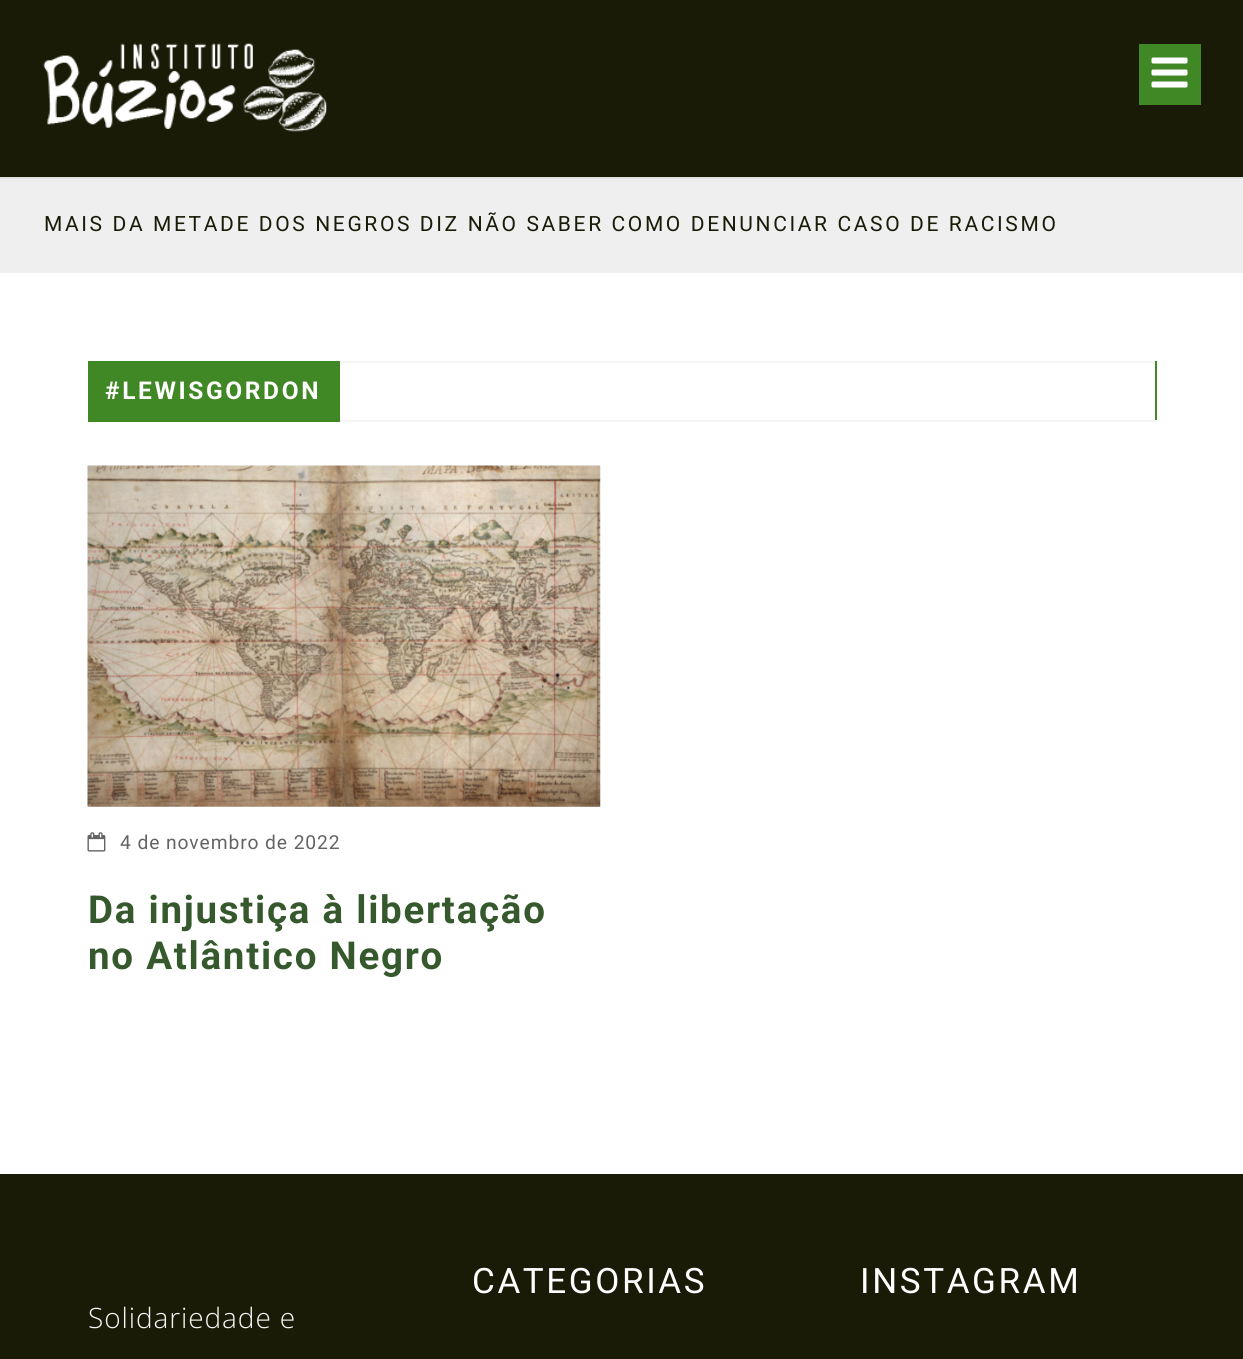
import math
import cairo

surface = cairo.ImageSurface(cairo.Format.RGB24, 1243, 1359)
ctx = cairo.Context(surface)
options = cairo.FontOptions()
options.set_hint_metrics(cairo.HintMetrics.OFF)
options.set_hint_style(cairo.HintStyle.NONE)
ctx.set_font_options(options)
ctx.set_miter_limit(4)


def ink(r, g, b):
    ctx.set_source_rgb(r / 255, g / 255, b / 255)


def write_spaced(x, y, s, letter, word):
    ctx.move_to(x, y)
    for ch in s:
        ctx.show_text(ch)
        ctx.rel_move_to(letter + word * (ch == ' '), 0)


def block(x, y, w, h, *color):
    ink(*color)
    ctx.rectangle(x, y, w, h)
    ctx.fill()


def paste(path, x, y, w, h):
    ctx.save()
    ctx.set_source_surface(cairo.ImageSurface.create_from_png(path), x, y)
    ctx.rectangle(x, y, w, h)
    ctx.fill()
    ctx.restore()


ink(25, 27, 7)
ctx.paint()
paste("pic1.png", 43, 43, 284, 89)
block(1139, 44, 62, 61, 64, 136, 37)
paste("pic2.png", 1151, 57, 37, 31)
block(0, 179, 1243, 94, 239, 239, 239)
block(0, 177, 1243, 2, 226, 226, 226)
ctx.select_font_face("Roboto")
ctx.set_font_size(21)
ink(25, 27, 7)
write_spaced(44, 231, "MAIS DA METADE DOS NEGROS DIZ NÃO SABER COMO DENUNCIAR CASO DE RACISMO", 2.62, 0)
block(0, 273, 1243, 901, 255, 255, 255)
block(340, 361, 817, 2, 244, 244, 244)
block(1155, 361, 2, 61, 64, 136, 37)
block(340, 420, 817, 2, 244, 244, 244)
block(88, 361, 252, 61, 64, 136, 37)
ctx.select_font_face("Roboto", cairo.FontSlant.NORMAL, cairo.FontWeight.BOLD)
ctx.set_font_size(24.5)
ink(255, 255, 255)
write_spaced(105, 399, "#LEWISGORDON", 2.62, 0)
paste("pic3.png", 87, 465, 514, 342)
paste("pic4.png", 87, 832, 19, 20)
ctx.select_font_face("Roboto")
ctx.set_font_size(19.25)
ink(100, 100, 100)
write_spaced(120, 849, "4 de novembro de 2022", 0.9, 0)
ctx.select_font_face("Roboto", cairo.FontSlant.NORMAL, cairo.FontWeight.BOLD)
ctx.set_font_size(38.5)
ink(53, 89, 45)
write_spaced(88, 923, "Da injustiça à libertação", 1.75, 0)
write_spaced(88, 969, "no Atlântico Negro", 1.75, 0)
ctx.select_font_face("Roboto")
ctx.set_font_size(35)
ink(255, 255, 255)
write_spaced(472, 1293, "CATEGORIAS", 2.62, 0)
write_spaced(860, 1293, "INSTAGRAM", 2.62, 0)
ctx.select_font_face("Open Sans Light")
ctx.set_font_size(28)
ink(245, 245, 245)
write_spaced(88, 1328, "Solidariedade e", 0.9, 0)
surface.write_to_png("screenshot.png")
